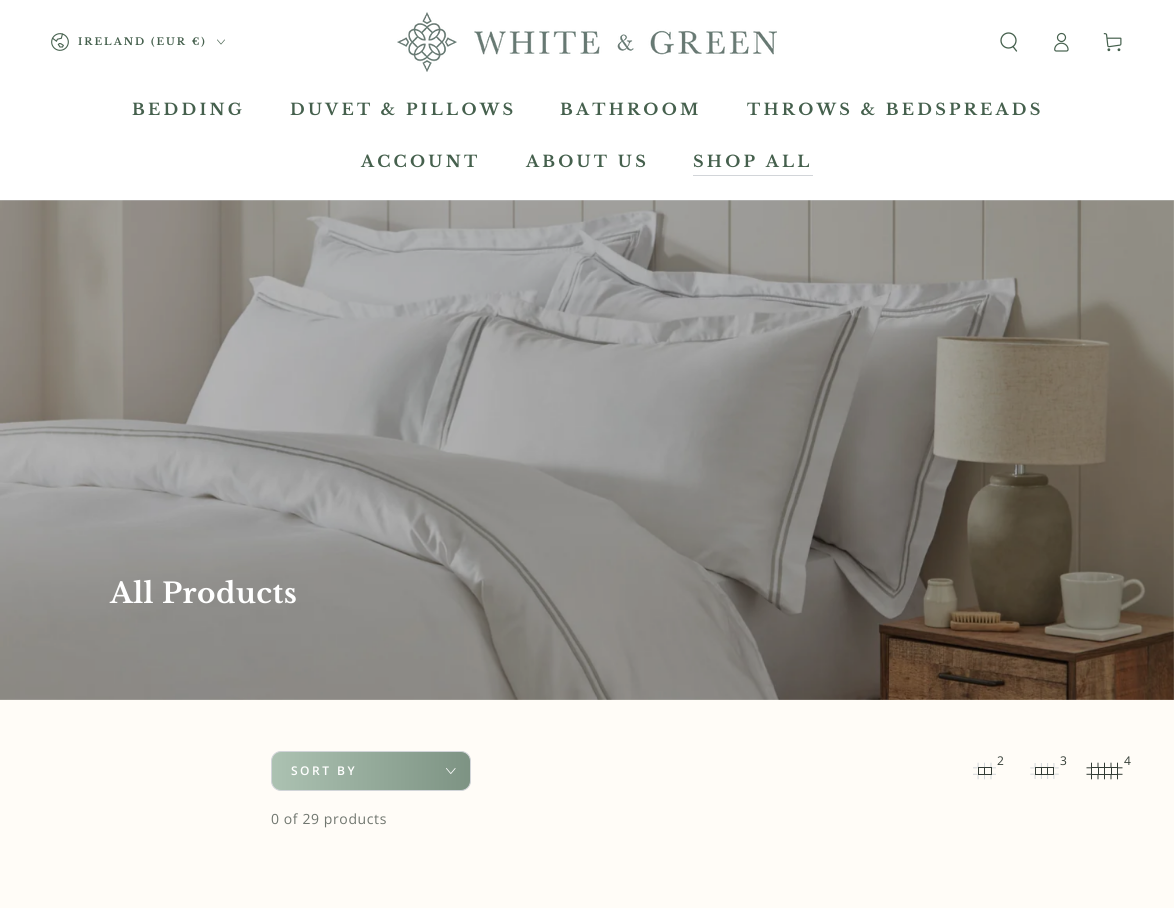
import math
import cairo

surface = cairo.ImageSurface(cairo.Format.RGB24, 1174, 908)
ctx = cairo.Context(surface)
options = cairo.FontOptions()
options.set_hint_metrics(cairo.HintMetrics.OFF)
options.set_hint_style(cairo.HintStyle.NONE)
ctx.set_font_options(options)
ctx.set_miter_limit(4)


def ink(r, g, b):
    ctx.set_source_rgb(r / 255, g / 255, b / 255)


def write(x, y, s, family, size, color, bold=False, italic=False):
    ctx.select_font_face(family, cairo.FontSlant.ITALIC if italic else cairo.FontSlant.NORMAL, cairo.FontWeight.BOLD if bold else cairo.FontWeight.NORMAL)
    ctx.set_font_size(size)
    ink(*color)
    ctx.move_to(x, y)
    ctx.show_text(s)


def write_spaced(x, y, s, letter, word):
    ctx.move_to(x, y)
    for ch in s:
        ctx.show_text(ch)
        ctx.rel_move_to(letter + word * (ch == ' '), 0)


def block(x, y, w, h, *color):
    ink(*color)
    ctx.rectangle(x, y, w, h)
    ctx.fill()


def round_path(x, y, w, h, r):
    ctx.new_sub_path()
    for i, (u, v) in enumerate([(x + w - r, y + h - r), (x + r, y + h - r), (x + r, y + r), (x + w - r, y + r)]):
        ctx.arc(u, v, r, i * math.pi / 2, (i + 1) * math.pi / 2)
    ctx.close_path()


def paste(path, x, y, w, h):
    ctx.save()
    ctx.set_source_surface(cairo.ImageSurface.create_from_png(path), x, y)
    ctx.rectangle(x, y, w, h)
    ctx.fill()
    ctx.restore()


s1 = dict(family="Open Sans", size=12, color=(51, 60, 53))

ink(255, 252, 247)
ctx.paint()
paste("pic6.png", 0, 200, 1174, 500)
ctx.set_source_rgba(0.824, 0.835, 0.851, 0.3)
ctx.rectangle(0, 200, 1174, 1)
ctx.fill()
block(0, 0, 1174, 200, 255, 255, 255)
paste("pic1.png", 51, 33, 18, 18)
ctx.select_font_face("Libre Baskerville", cairo.FontSlant.NORMAL, cairo.FontWeight.BOLD)
ctx.set_font_size(10)
ink(69, 96, 77)
write_spaced(78, 45, "IRELAND (EUR €)", 2, 0)
paste("pic2.png", 217, 39, 8, 6)
paste("pic3.png", 397, 12, 380, 60)
ctx.arc(1008.5, 40.5, 7.5, 0, 2 * math.pi)
ctx.set_line_width(1.3)
ctx.stroke()
ctx.new_path()
ctx.move_to(1013, 46.5)
ctx.line_to(1016.5, 51)
ctx.set_line_cap(cairo.LineCap.ROUND)
ctx.stroke()
paste("pic4.png", 1054, 32, 15, 20)
paste("pic5.png", 1103, 33, 19, 19)
ctx.set_font_size(16)
write_spaced(132, 115, "BEDDING", 3.25, 0)
write_spaced(290, 115, "DUVET & PILLOWS", 3.25, 0)
write_spaced(560, 115, "BATHROOM", 3.25, 0)
write_spaced(747, 115, "THROWS & BEDSPREADS", 3.25, 0)
write_spaced(361, 167, "ACCOUNT", 3.25, 0)
write_spaced(526, 167, "ABOUT US", 3.25, 0)
block(693, 175, 120, 1, 210, 213, 217)
ink(69, 96, 77)
write_spaced(693, 167, "SHOP ALL", 3.25, 0)
ctx.set_font_size(28)
ink(255, 255, 255)
write_spaced(110, 603, "All Products", 0.5, 0)
write(997, 765, "2", **s1)
paste("pic7.png", 973, 762, 23, 18)
write(1060, 765, "3", **s1)
paste("pic8.png", 1030, 763, 29, 16)
write(1124, 765, "4", **s1)
paste("pic9.png", 1086, 762, 37, 18)
gradient = cairo.LinearGradient(271, 771, 471, 771)
gradient.add_color_stop_rgba(0, 0.675, 0.761, 0.698, 1)
gradient.add_color_stop_rgba(1, 0.49, 0.576, 0.514, 1)
ctx.set_source(gradient)
round_path(271.5, 751.5, 199, 39, 9.5)
ctx.fill_preserve()
ink(210, 213, 217)
ctx.set_line_width(1)
ctx.set_line_cap(cairo.LineCap.BUTT)
ctx.stroke()
ctx.select_font_face("Open Sans SemiBold")
ink(255, 255, 255)
write_spaced(291, 775, "SORT BY", 2.5, 0)
paste("pic10.png", 446, 768, 10, 6)
ctx.select_font_face("Open Sans")
ctx.set_font_size(14)
ink(112, 118, 111)
write_spaced(271, 824, "0 of 29 products", 0.6, 0)
surface.write_to_png("screenshot.png")
